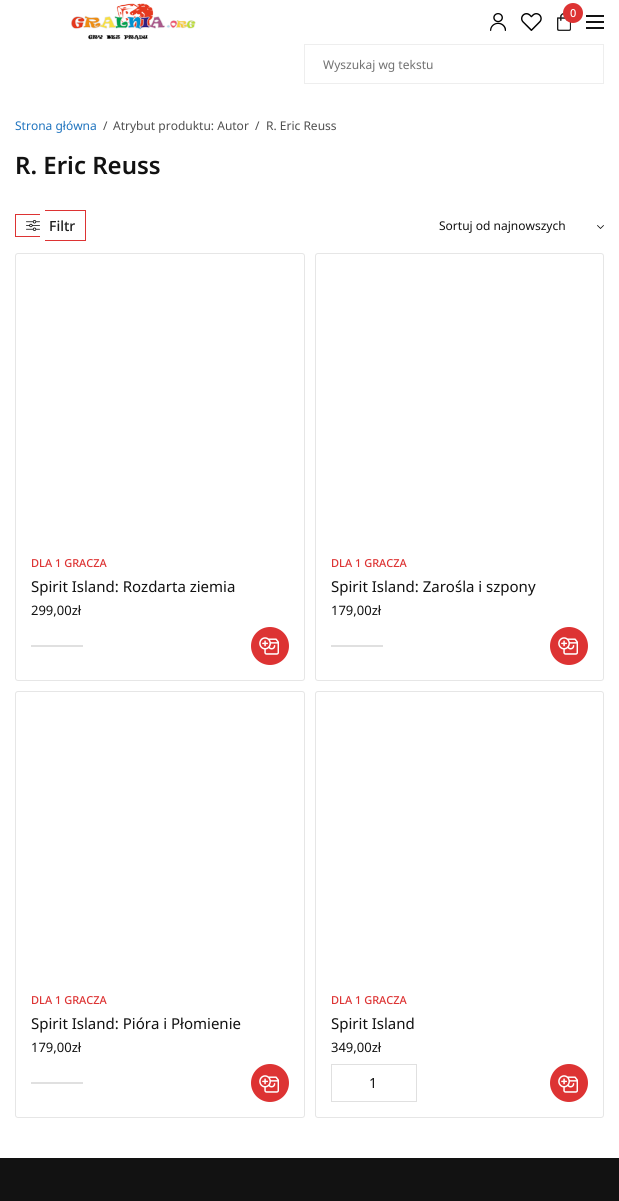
import math
import cairo

surface = cairo.ImageSurface(cairo.Format.RGB24, 619, 1201)
ctx = cairo.Context(surface)
options = cairo.FontOptions()
options.set_hint_metrics(cairo.HintMetrics.OFF)
options.set_hint_style(cairo.HintStyle.NONE)
ctx.set_font_options(options)
ctx.set_miter_limit(4)


def ink(r, g, b):
    ctx.set_source_rgb(r / 255, g / 255, b / 255)


def write(x, y, s, family, size, color, bold=False, italic=False):
    ctx.select_font_face(family, cairo.FontSlant.ITALIC if italic else cairo.FontSlant.NORMAL, cairo.FontWeight.BOLD if bold else cairo.FontWeight.NORMAL)
    ctx.set_font_size(size)
    ink(*color)
    ctx.move_to(x, y)
    ctx.show_text(s)


def block(x, y, w, h, *color):
    ink(*color)
    ctx.rectangle(x, y, w, h)
    ctx.fill()


def round_path(x, y, w, h, r):
    ctx.new_sub_path()
    for i, (u, v) in enumerate([(x + w - r, y + h - r), (x + r, y + h - r), (x + r, y + r), (x + w - r, y + r)]):
        ctx.arc(u, v, r, i * math.pi / 2, (i + 1) * math.pi / 2)
    ctx.close_path()


def paste(path, x, y, w, h):
    ctx.save()
    ctx.set_source_surface(cairo.ImageSurface.create_from_png(path), x, y)
    ctx.rectangle(x, y, w, h)
    ctx.fill()
    ctx.restore()


s1 = dict(family="Noto Sans Medium", size=11, color=(255, 255, 255))
s2 = dict(family="Noto Sans", size=12, color=(113, 113, 113))
s3 = dict(family="Noto Sans", size=12, color=(30, 115, 190))
s4 = dict(family="Noto Sans", size=12, color=(79, 79, 79))
s5 = dict(family="Noto Sans SemiBold", size=24, color=(18, 18, 18))
s6 = dict(family="Noto Sans Medium", size=14, color=(30, 30, 30))
s7 = dict(family="Noto Sans", size=12, color=(18, 18, 18))
s8 = dict(family="Noto Sans Medium", size=11, color=(221, 51, 51))
s9 = dict(family="Noto Sans", size=15, color=(18, 18, 18))
s10 = dict(family="Noto Sans", size=13, color=(18, 18, 18))
s11 = dict(family="Noto Sans", size=14, color=(18, 18, 18))

ink(255, 255, 255)
ctx.paint()
paste("pic1.png", 71, 3, 125, 37)
paste("pic2.png", 490, 13, 16, 18)
paste("pic3.png", 521, 13, 21, 18)
paste("pic4.png", 557, 13, 14, 18)
ink(221, 51, 51)
ctx.arc(573, 13, 10, 0, 2 * math.pi)
ctx.fill()
write(570, 17, "0", **s1)
block(586, 15, 18, 2, 18, 18, 18)
block(586, 21, 18, 2, 18, 18, 18)
block(586, 27, 18, 2, 18, 18, 18)
ctx.rectangle(304.5, 44.5, 299, 39)
ink(238, 238, 238)
ctx.set_line_width(1)
ctx.stroke()
write(323, 69, "Wyszukaj wg tekstu", **s2)
write(15, 130, "Strona główna", **s3)
write(103, 130, "/", **s4)
write(113, 130, "Atrybut produktu: Autor", **s4)
write(255, 130, "/", **s4)
write(266, 130, "R. Eric Reuss", **s4)
write(15, 174, "R. Eric Reuss", **s5)
paste("pic5.png", 26, 220, 14, 11)
write(49, 231, "Filtr", **s6)
block(15, 214, 25, 1, 221, 51, 51)
block(15, 236, 25, 1, 221, 51, 51)
block(15, 214, 1, 23, 221, 51, 51)
block(45, 210, 41, 1, 221, 51, 51)
block(85, 210, 1, 31, 221, 51, 51)
block(45, 240, 41, 1, 221, 51, 51)
paste("pic6.png", 597, 225, 7, 4)
write(439, 230, "Sortuj od najnowszych", **s7)
round_path(15.5, 253.5, 289, 427, 2.5)
ink(230, 230, 230)
ctx.stroke()
write(31, 567, "DLA 1 GRACZA", **s8)
write(31, 592, "Spirit Island: Rozdarta ziemia", **s9)
write(31, 615, "299,00zł", **s10)
block(31, 645, 52, 2, 224, 224, 224)
ink(221, 51, 51)
ctx.new_path()
ctx.arc(270, 646, 19, 0, 2 * math.pi)
ctx.fill()
paste("pic7.png", 259, 637, 20, 18)
round_path(315.5, 253.5, 288, 427, 2.5)
ink(230, 230, 230)
ctx.stroke()
write(331, 567, "DLA 1 GRACZA", **s8)
write(331, 592, "Spirit Island: Zarośla i szpony", **s9)
write(331, 615, "179,00zł", **s10)
block(331, 645, 52, 2, 224, 224, 224)
ink(221, 51, 51)
ctx.new_path()
ctx.arc(569, 646, 19, 0, 2 * math.pi)
ctx.fill()
paste("pic7.png", 558, 637, 20, 18)
round_path(15.5, 691.5, 289, 426, 2.5)
ink(230, 230, 230)
ctx.stroke()
write(31, 1004, "DLA 1 GRACZA", **s8)
write(31, 1029, "Spirit Island: Pióra i Płomienie", **s9)
write(31, 1052, "179,00zł", **s10)
block(31, 1082, 52, 2, 224, 224, 224)
ink(221, 51, 51)
ctx.new_path()
ctx.arc(270, 1083, 19, 0, 2 * math.pi)
ctx.fill()
paste("pic7.png", 259, 1075, 20, 18)
round_path(315.5, 691.5, 288, 426, 2.5)
ink(230, 230, 230)
ctx.stroke()
write(331, 1004, "DLA 1 GRACZA", **s8)
write(331, 1029, "Spirit Island", **s9)
write(331, 1052, "349,00zł", **s10)
ctx.rectangle(331.5, 1064.5, 85, 37)
ink(224, 224, 224)
ctx.stroke()
write(369, 1088, "1", **s11)
ink(221, 51, 51)
ctx.new_path()
ctx.arc(569, 1083, 19, 0, 2 * math.pi)
ctx.fill()
paste("pic7.png", 558, 1075, 20, 18)
block(0, 1158, 619, 43, 18, 18, 18)
surface.write_to_png("screenshot.png")
